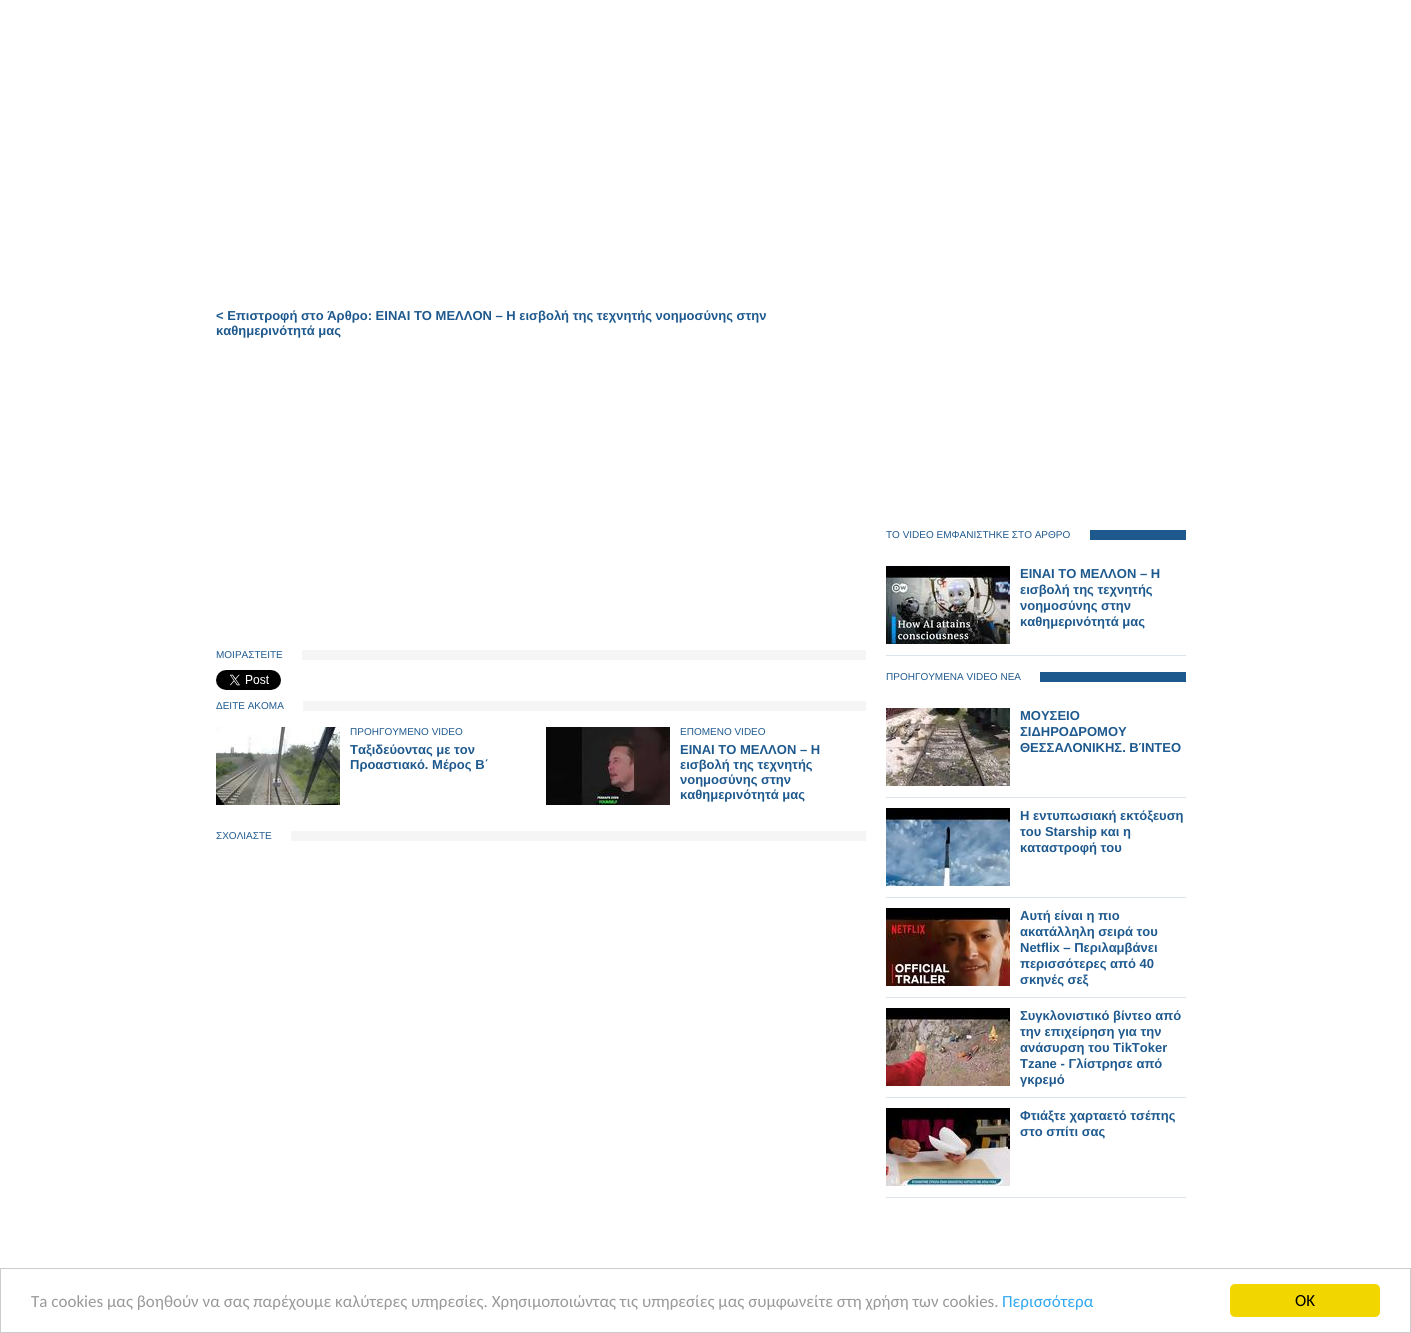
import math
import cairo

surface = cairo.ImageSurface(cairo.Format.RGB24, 1411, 1333)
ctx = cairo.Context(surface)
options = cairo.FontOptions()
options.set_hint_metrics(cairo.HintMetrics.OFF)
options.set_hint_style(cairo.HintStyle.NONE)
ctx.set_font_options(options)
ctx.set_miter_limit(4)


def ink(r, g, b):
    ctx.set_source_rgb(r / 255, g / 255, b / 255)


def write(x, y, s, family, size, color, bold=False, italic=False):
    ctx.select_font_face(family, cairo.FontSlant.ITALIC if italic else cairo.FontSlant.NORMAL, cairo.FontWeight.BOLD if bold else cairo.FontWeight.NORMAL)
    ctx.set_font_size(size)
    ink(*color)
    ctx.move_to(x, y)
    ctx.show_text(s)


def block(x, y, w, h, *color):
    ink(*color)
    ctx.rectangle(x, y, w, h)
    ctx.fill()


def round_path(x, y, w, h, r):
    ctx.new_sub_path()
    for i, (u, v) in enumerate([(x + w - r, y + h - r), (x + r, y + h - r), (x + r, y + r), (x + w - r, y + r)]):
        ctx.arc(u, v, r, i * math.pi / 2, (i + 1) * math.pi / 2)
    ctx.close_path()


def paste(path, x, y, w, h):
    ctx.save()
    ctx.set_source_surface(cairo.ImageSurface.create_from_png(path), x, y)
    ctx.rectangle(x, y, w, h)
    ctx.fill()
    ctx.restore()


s1 = dict(family="Liberation Sans", size=13, color=(30, 89, 142), bold=True)
s2 = dict(family="Liberation Sans", size=10, color=(30, 89, 142))
s3 = dict(family="Carlito", size=17, color=(153, 153, 153))
s4 = dict(family="Carlito", size=17, color=(49, 168, 240))
s5 = dict(family="Carlito", size=17, color=(0, 0, 0))

ink(255, 255, 255)
ctx.paint()
write(216, 320, "< Επιστροφή στο Άρθρο: ΕΙΝΑΙ ΤΟ ΜΕΛΛΟΝ – Η εισβολή της τεχνητής νοημοσύνης στην", **s1)
write(216, 335, "καθημερινότητά μας", **s1)
block(302, 650, 564, 10, 245, 245, 245)
write(216, 658, "ΜΟΙΡΑΣΤΕΙΤΕ", **s2)
paste("pic1.png", 216, 670, 65, 20)
block(303, 701, 563, 10, 245, 245, 245)
write(216, 709, "ΔΕΙΤΕ ΑΚΟΜΑ", **s2)
paste("pic2.png", 216, 727, 124, 78)
write(350, 735, "ΠΡΟΗΓΟΥΜΕΝΟ VIDEO", **s2)
write(350, 754, "Ταξιδεύοντας με τον", **s1)
write(350, 769, "Προαστιακό. Μέρος Β΄", **s1)
paste("pic3.png", 546, 727, 124, 78)
write(680, 735, "ΕΠΟΜΕΝΟ VIDEO", **s2)
write(680, 754, "ΕΙΝΑΙ ΤΟ ΜΕΛΛΟΝ – Η", **s1)
write(680, 769, "εισβολή της τεχνητής", **s1)
write(680, 784, "νοημοσύνης στην", **s1)
write(680, 799, "καθημερινότητά μας", **s1)
block(291, 831, 575, 10, 245, 245, 245)
write(216, 839, "ΣΧΟΛΙΑΣΤΕ", **s2)
block(1090, 530, 96, 10, 30, 89, 142)
write(886, 538, "ΤΟ VIDEO ΕΜΦΑΝΙΣΤΗΚΕ ΣΤΟ ΑΡΘΡΟ", **s2)
block(886, 655, 300, 1, 220, 229, 238)
paste("pic4.png", 886, 566, 124, 78)
write(1020, 578, "ΕΙΝΑΙ ΤΟ ΜΕΛΛΟΝ – Η", **s1)
write(1020, 594, "εισβολή της τεχνητής", **s1)
write(1020, 610, "νοημοσύνης στην", **s1)
write(1020, 626, "καθημερινότητά μας", **s1)
block(1040, 672, 146, 10, 30, 89, 142)
write(886, 680, "ΠΡΟΗΓΟΥΜΕΝΑ VIDEO ΝΕΑ", **s2)
block(886, 797, 300, 1, 220, 229, 238)
paste("pic5.png", 886, 708, 124, 78)
write(1020, 720, "ΜΟΥΣΕΙΟ", **s1)
write(1020, 736, "ΣΙΔΗΡΟΔΡΟΜΟΥ", **s1)
write(1020, 752, "ΘΕΣΣΑΛΟΝΙΚΗΣ. ΒΊΝΤΕΟ", **s1)
block(886, 897, 300, 1, 220, 229, 238)
paste("pic6.png", 886, 808, 124, 78)
write(1020, 820, "Η εντυπωσιακή εκτόξευση", **s1)
write(1020, 836, "του Starship και η", **s1)
write(1020, 852, "καταστροφή του", **s1)
block(886, 997, 300, 1, 220, 229, 238)
paste("pic7.png", 886, 908, 124, 78)
write(1020, 920, "Αυτή είναι η πιο", **s1)
write(1020, 936, "ακατάλληλη σειρά του", **s1)
write(1020, 952, "Netflix – Περιλαμβάνει", **s1)
write(1020, 968, "περισσότερες από 40", **s1)
write(1020, 984, "σκηνές σεξ", **s1)
block(886, 1097, 300, 1, 220, 229, 238)
paste("pic8.png", 886, 1008, 124, 78)
write(1020, 1020, "Συγκλονιστικό βίντεο από", **s1)
write(1020, 1036, "την επιχείρηση για την", **s1)
write(1020, 1052, "ανάσυρση του TikToker", **s1)
write(1020, 1068, "Tzane - Γλίστρησε από", **s1)
write(1020, 1084, "γκρεμό", **s1)
block(886, 1197, 300, 1, 220, 229, 238)
paste("pic9.png", 886, 1108, 124, 78)
write(1020, 1120, "Φτιάξτε χαρταετό τσέπης", **s1)
write(1020, 1136, "στο σπίτι σας", **s1)
ctx.rectangle(0.5, 1268.5, 1410, 64)
ink(204, 204, 204)
ctx.set_line_width(1)
ctx.stroke()
write(31, 1307, "Ta cookies μας βοηθούν να σας παρέχουμε καλύτερες υπηρεσίες. Χρησιμοποιώντας τις υπηρεσίες μας συμφωνείτε στη χρήση των cookies.", **s3)
write(1002, 1307, "Περισσότερα", **s4)
ink(241, 214, 0)
round_path(1230, 1284, 150, 33, 5)
ctx.fill()
write(1295, 1306, "OK", **s5)
surface.write_to_png("screenshot.png")
